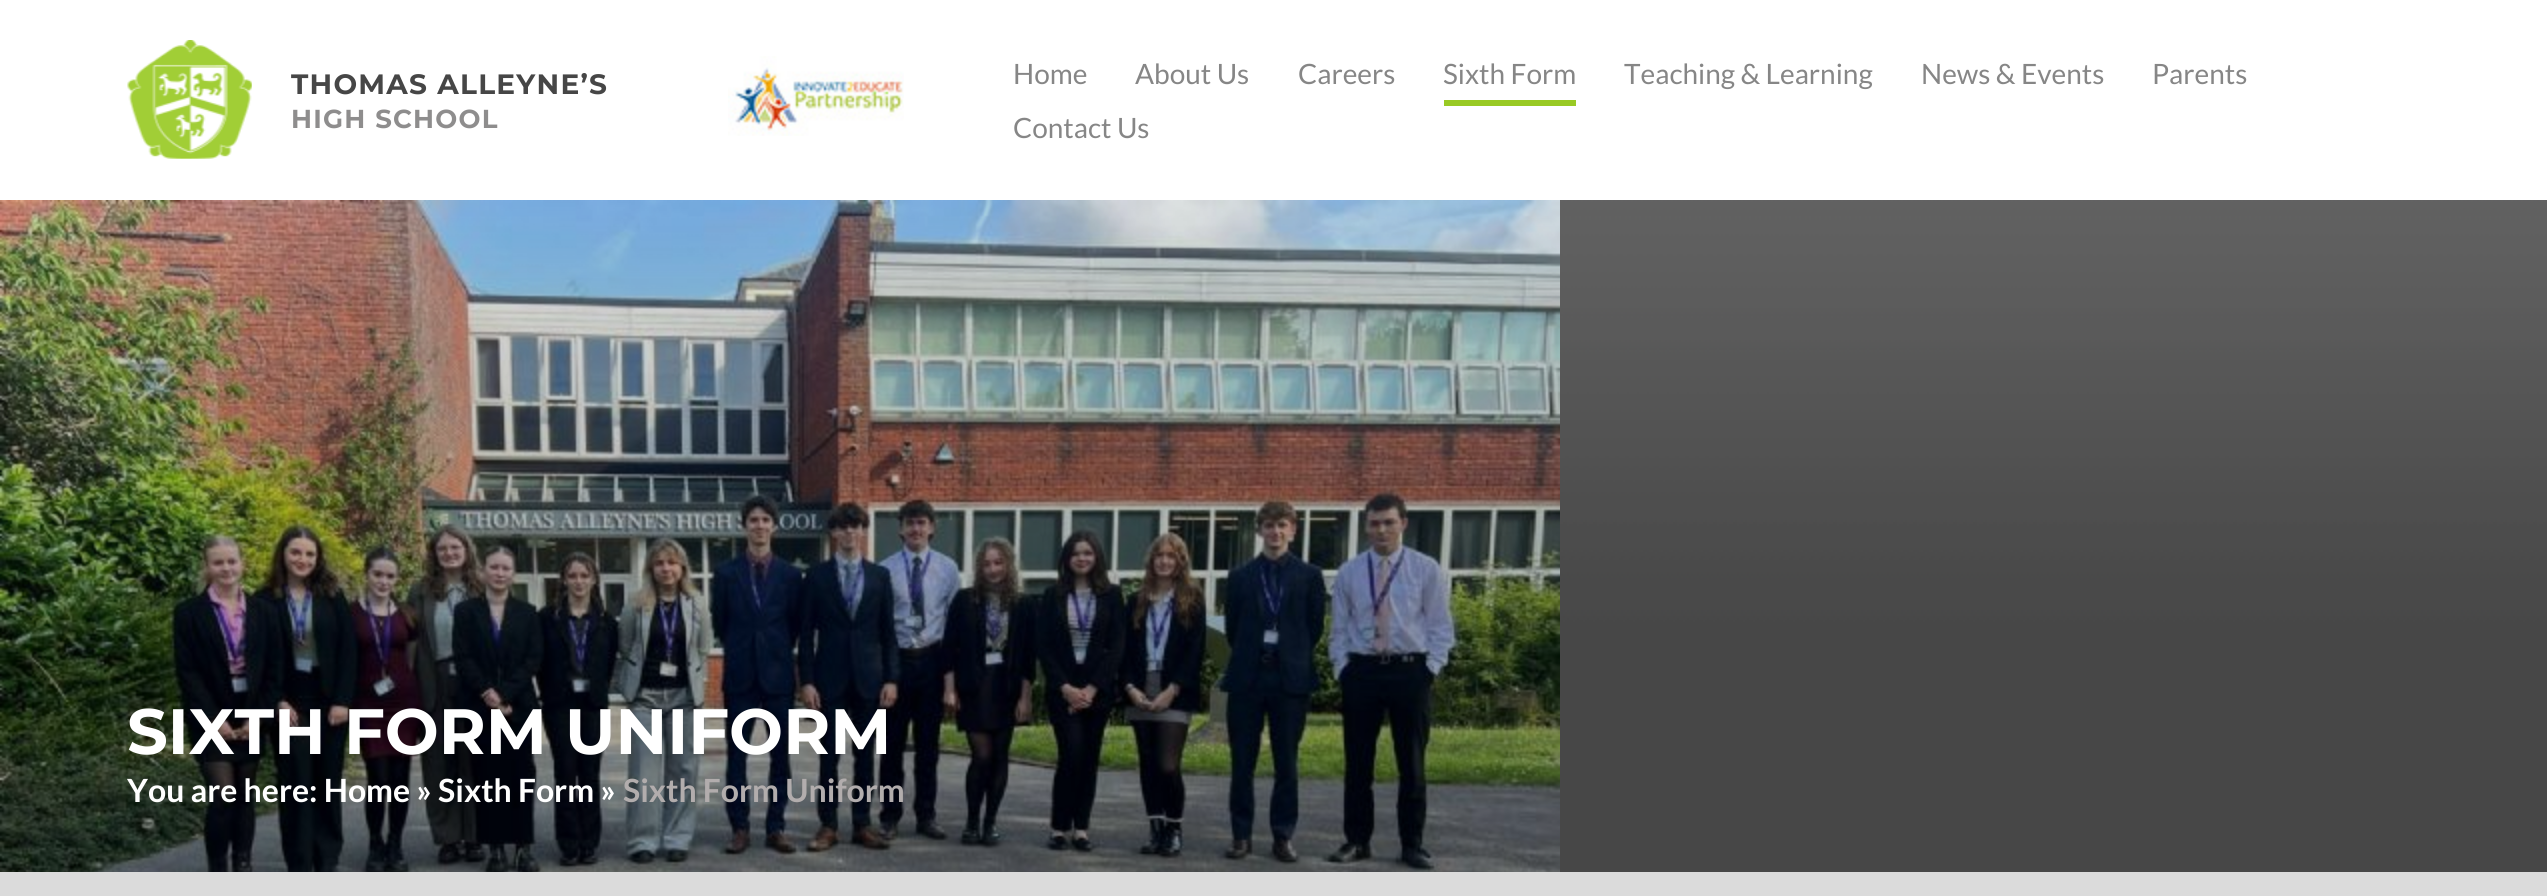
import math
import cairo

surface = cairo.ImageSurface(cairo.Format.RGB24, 2547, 896)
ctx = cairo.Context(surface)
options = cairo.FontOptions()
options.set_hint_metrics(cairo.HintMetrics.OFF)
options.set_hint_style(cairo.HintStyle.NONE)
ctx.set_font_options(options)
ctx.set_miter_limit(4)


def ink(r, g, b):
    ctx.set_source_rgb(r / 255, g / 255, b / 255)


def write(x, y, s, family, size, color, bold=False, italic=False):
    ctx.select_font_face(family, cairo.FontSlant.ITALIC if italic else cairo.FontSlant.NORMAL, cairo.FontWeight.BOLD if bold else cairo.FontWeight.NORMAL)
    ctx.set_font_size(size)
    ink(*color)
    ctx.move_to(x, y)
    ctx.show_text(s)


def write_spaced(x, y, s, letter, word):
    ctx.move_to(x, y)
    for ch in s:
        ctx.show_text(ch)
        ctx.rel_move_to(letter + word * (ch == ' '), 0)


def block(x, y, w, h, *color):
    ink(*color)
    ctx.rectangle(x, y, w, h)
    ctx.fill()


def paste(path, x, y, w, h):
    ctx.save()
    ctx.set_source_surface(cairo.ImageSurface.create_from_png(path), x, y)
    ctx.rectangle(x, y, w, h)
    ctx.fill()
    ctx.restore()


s1 = dict(family="Lato", size=28, color=(134, 134, 134))
s2 = dict(family="Montserrat", size=64, color=(255, 255, 255), bold=True)
s3 = dict(family="Lato", size=32, color=(255, 255, 255), bold=True)
s4 = dict(family="Lato", size=32, color=(178, 173, 173), bold=True)

ink(219, 219, 219)
ctx.paint()
block(0, 0, 2547, 200, 255, 255, 255)
paste("pic1.png", 127, 40, 125, 119)
ctx.select_font_face("Montserrat", cairo.FontSlant.NORMAL, cairo.FontWeight.BOLD)
ctx.set_font_size(28)
ink(70, 70, 70)
write_spaced(291, 94, "THOMAS ALLEYNE’S", 1.25, 0)
ctx.set_font_size(26)
ink(142, 141, 141)
write_spaced(291, 128, "HIGH SCHOOL", 1.25, 0)
paste("pic2.png", 728, 56, 176, 80)
write(1013, 84, "Home", **s1)
write(1135, 84, "About Us", **s1)
write(1298, 84, "Careers", **s1)
write(1443, 84, "Sixth Form", **s1)
block(1444, 100, 132, 6, 153, 202, 36)
write(1624, 84, "Teaching & Learning", **s1)
write(1921, 84, "News & Events", **s1)
write(2152, 84, "Parents", **s1)
write(1013, 138, "Contact Us", **s1)
block(1560, 200, 987, 672, 102, 102, 102)
paste("pic3.png", 0, 200, 1560, 672)
paste("pic4.png", 0, 200, 2547, 672)
write(127, 754, "SIXTH FORM UNIFORM", **s2)
write(127, 802, "You are here: Home » Sixth Form »", **s3)
write(623, 802, "Sixth Form Uniform", **s4)
surface.write_to_png("screenshot.png")
